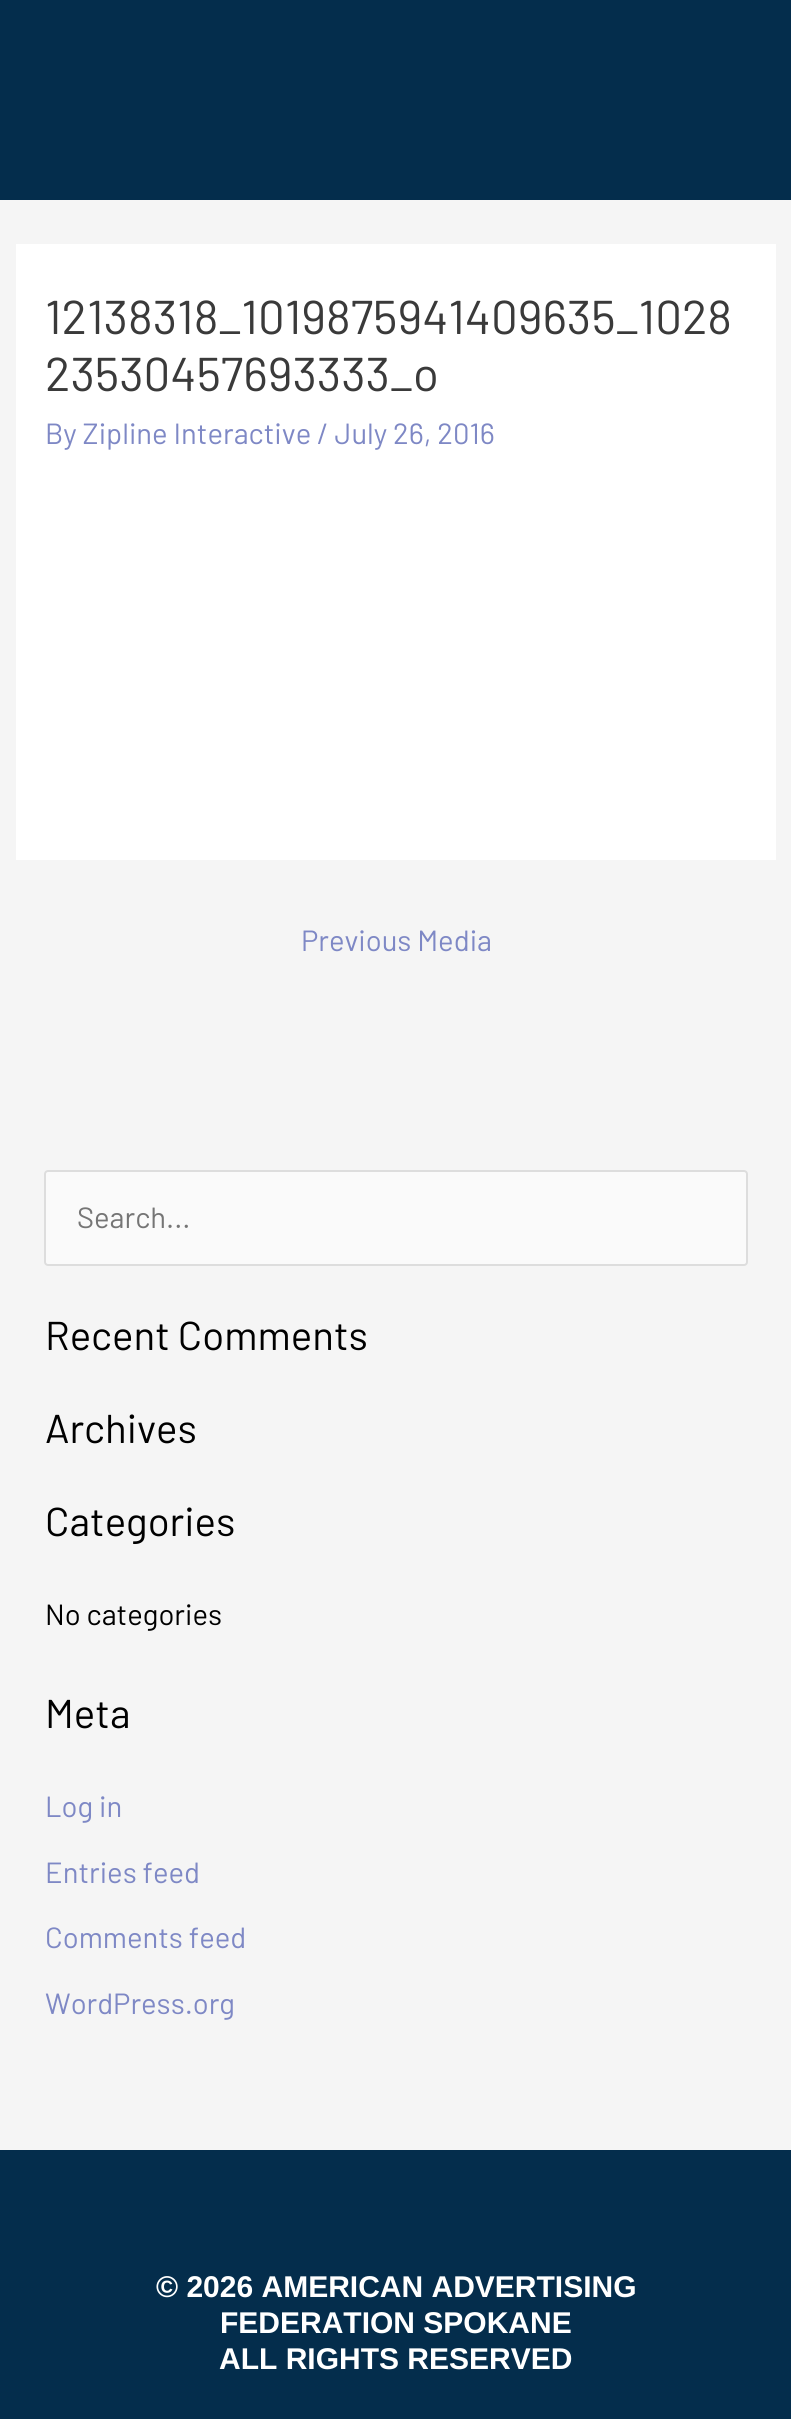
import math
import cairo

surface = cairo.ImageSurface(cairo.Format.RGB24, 791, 2419)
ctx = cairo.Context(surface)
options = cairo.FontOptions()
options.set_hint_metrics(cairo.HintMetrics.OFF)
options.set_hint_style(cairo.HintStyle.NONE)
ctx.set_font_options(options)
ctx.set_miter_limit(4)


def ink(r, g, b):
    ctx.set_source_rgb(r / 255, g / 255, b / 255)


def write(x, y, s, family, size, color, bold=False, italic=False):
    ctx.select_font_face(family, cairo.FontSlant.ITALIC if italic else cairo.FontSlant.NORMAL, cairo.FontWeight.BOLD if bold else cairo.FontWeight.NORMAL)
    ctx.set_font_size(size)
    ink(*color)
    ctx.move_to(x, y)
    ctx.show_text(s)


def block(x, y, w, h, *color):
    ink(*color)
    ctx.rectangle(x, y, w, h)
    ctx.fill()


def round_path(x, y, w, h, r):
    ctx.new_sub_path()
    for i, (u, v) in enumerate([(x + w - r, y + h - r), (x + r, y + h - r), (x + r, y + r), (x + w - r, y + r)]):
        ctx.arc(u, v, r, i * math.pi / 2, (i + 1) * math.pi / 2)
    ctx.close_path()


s1 = dict(family="Barlow", size=47.4, color=(58, 58, 58))
s2 = dict(family="Barlow", size=29.2, color=(126, 136, 197))
s3 = dict(family="Barlow", size=29.2, color=(117, 117, 117))
s4 = dict(family="Barlow", size=40.25, color=(0, 0, 0))
s5 = dict(family="Barlow", size=29.2, color=(0, 0, 0))
s6 = dict(family="Liberation Sans", size=30, color=(255, 255, 255), bold=True)

ink(245, 245, 245)
ctx.paint()
block(0, 0, 791, 200, 4, 45, 76)
block(16, 244, 760, 616, 255, 255, 255)
write(45, 334, "12138318_1019875941409635_1028", **s1)
write(45, 391, "23530457693333_o", **s1)
write(45, 444, "By Zipline Interactive / July 26, 2016", **s2)
write(301, 951, "Previous Media", **s2)
ink(250, 250, 250)
round_path(45, 1171, 702, 94, 3)
ctx.fill_preserve()
ink(221, 221, 221)
ctx.stroke()
write(77, 1228, "Search...", **s3)
write(45, 1350, "Recent Comments", **s4)
write(45, 1443, "Archives", **s4)
write(45, 1536, "Categories", **s4)
write(45, 1625, "No categories", **s5)
write(45, 1728, "Meta", **s4)
write(45, 1817, "Log in", **s2)
write(45, 1883, "Entries feed", **s2)
write(45, 1948, "Comments feed", **s2)
write(45, 2014, "WordPress.org", **s2)
block(0, 2150, 791, 269, 4, 45, 76)
write(156, 2297, "© 2026 AMERICAN ADVERTISING", **s6)
write(220, 2333, "FEDERATION SPOKANE", **s6)
write(219, 2369, "ALL RIGHTS RESERVED", **s6)
surface.write_to_png("screenshot.png")
